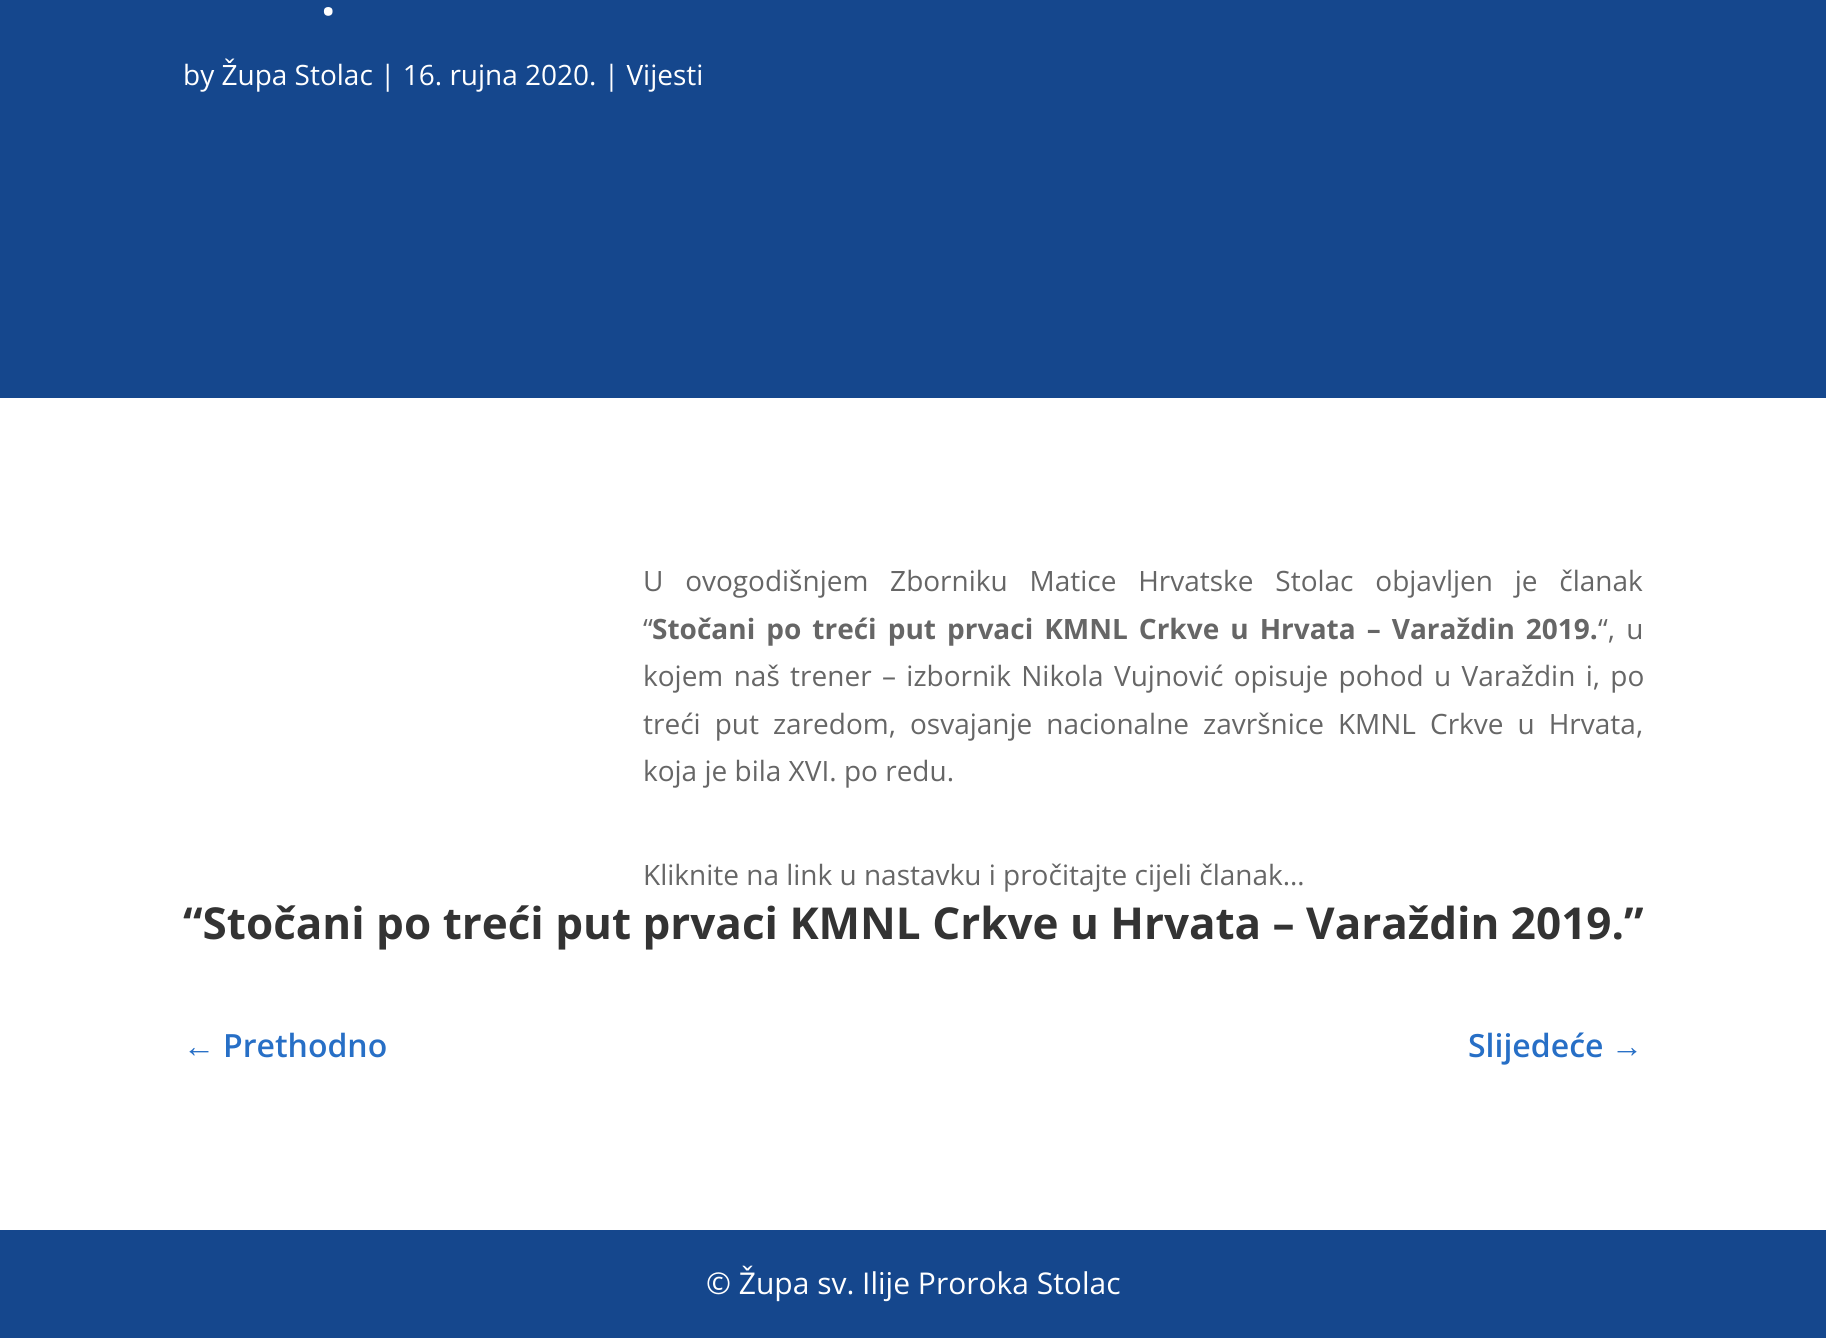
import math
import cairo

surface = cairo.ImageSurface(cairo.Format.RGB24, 1826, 1338)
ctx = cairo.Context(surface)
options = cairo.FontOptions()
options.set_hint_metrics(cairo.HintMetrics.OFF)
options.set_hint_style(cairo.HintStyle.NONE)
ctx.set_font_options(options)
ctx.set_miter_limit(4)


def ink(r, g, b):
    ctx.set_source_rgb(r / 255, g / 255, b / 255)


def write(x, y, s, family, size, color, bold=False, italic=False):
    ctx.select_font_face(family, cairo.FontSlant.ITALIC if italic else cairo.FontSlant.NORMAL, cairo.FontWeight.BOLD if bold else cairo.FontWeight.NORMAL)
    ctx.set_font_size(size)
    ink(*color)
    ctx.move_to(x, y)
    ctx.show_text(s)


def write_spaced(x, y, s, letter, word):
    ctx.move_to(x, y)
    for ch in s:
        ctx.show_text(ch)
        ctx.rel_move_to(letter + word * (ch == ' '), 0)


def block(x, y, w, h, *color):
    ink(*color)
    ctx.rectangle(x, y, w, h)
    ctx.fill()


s1 = dict(family="Open Sans SemiBold", size=60, color=(255, 255, 255))
s2 = dict(family="Open Sans", size=28, color=(255, 255, 255))
s3 = dict(family="Open Sans", size=28, color=(102, 102, 102))
s4 = dict(family="Open Sans", size=44, color=(51, 51, 51), bold=True)
s5 = dict(family="Liberation Sans", size=32, color=(39, 111, 198), bold=True)
s6 = dict(family="Open Sans SemiBold", size=32, color=(39, 111, 198))
s7 = dict(family="Open Sans", size=30, color=(255, 255, 255))

ink(255, 255, 255)
ctx.paint()
block(0, 0, 1826, 398, 21, 71, 141)
write(320, 15, ".", **s1)
write(183, 85, "by Župa Stolac | 16. rujna 2020. | Vijesti", **s2)
ink(102, 102, 102)
write_spaced(643, 591, "U ovogodišnjem Zborniku Matice Hrvatske Stolac objavljen je članak", 0, 14.5)
write(643, 639, "“", **s3)
ctx.select_font_face("Open Sans", cairo.FontSlant.NORMAL, cairo.FontWeight.BOLD)
write_spaced(652, 639, "Stočani po treći put prvaci KMNL Crkve u Hrvata – Varaždin 2019.", 0, 3.75)
ctx.select_font_face("Open Sans")
write_spaced(1598, 639, "“, u", 0, 4)
write_spaced(643, 686, "kojem naš trener – izbornik Nikola Vujnović opisuje pohod u Varaždin i, po", 0, 3.1)
write_spaced(643, 734, "treći put zaredom, osvajanje nacionalne završnice KMNL Crkve u Hrvata,", 0, 6.75)
write(643, 781, "koja je bila XVI. po redu.", **s3)
write(643, 885, "Kliknite na link u nastavku i pročitajte cijeli članak…", **s3)
write(183, 939, "“Stočani po treći put prvaci KMNL Crkve u Hrvata – Varaždin 2019.”", **s4)
write(183, 1057, "←", **s5)
write(223, 1057, "Prethodno", **s6)
write(1468, 1057, "Slijedeće", **s6)
write(1611, 1057, "→", **s5)
block(0, 1230, 1826, 108, 21, 71, 141)
write(706, 1294, "© Župa sv. Ilije Proroka Stolac", **s7)
surface.write_to_png("screenshot.png")
